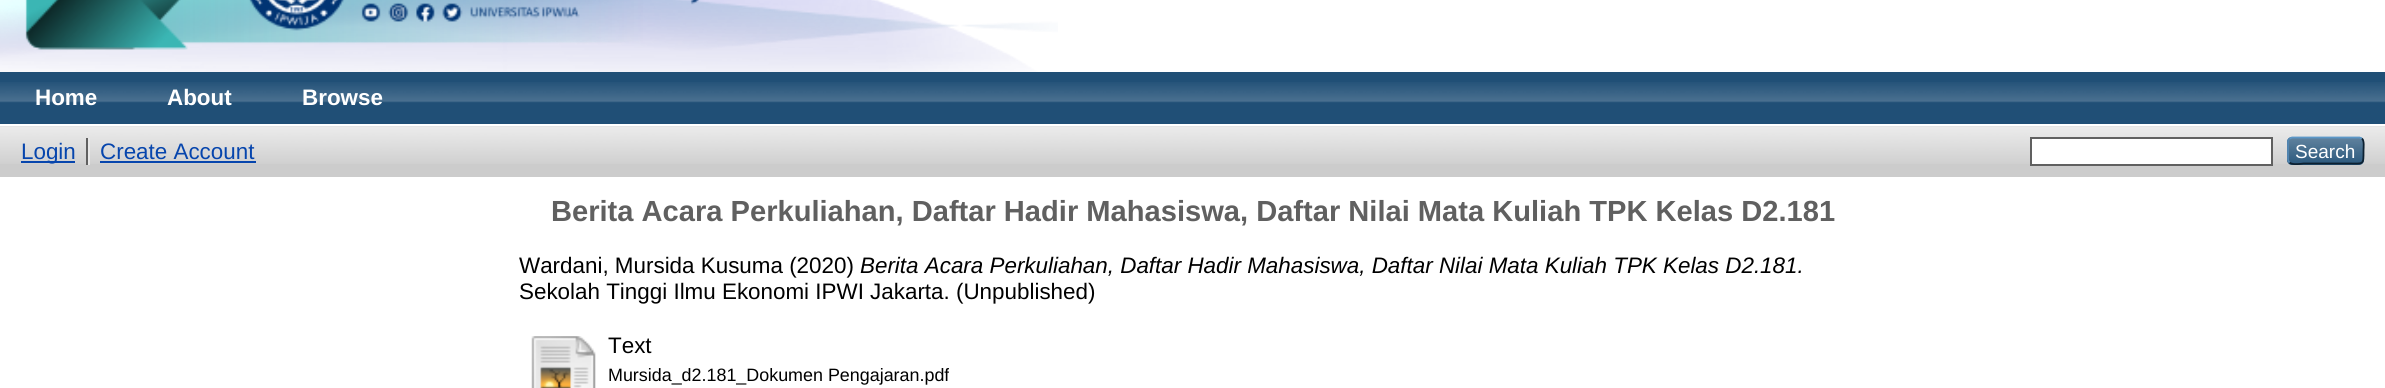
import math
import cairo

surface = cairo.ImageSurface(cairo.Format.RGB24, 2385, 388)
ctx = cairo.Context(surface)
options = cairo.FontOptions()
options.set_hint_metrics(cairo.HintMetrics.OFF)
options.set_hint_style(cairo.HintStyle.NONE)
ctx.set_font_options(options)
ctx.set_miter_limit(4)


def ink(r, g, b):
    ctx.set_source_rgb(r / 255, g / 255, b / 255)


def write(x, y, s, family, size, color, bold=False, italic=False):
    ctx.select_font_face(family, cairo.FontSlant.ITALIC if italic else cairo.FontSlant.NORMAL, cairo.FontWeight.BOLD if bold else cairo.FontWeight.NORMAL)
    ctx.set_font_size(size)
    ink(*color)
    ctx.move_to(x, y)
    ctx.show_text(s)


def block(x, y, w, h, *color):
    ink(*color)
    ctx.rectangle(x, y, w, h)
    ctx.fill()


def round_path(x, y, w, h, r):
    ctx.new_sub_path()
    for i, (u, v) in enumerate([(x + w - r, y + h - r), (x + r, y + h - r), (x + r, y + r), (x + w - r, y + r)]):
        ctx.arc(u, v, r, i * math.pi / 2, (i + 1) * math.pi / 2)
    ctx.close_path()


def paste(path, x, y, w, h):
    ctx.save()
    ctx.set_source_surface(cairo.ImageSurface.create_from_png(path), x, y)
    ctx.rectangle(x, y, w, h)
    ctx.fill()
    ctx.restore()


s1 = dict(family="Liberation Sans", size=22.4, color=(255, 255, 255), bold=True)
s2 = dict(family="Liberation Sans", size=22.4, color=(6, 69, 173))
s3 = dict(family="Liberation Sans", size=19, color=(255, 255, 255))
s4 = dict(family="Liberation Sans", size=29.1, color=(96, 96, 96), bold=True)
s5 = dict(family="Liberation Sans", size=22.4, color=(0, 0, 0))
s6 = dict(family="Liberation Sans", size=22.4, color=(0, 0, 0), italic=True)
s7 = dict(family="Liberation Sans", size=17.9, color=(0, 0, 0))

ink(255, 255, 255)
ctx.paint()
paste("pic1.png", 0, 0, 1058, 72)
paste("pic2.png", 25, 0, 674, 50)
block(0, 72, 2385, 52, 32, 79, 118)
paste("pic3.png", 0, 82, 2385, 21)
write(35, 105, "Home", **s1)
write(167, 105, "About", **s1)
write(302, 105, "Browse", **s1)
block(0, 126, 2385, 51, 204, 204, 204)
paste("pic4.png", 0, 126, 2385, 38)
block(21, 161, 54, 2, 6, 69, 173)
write(21, 159, "Login", **s2)
block(86, 138, 2, 27, 96, 96, 96)
write(100, 159, "Create Account", **s2)
block(88, 138, 2, 27, 232, 232, 232)
block(100, 161, 156, 2, 6, 69, 173)
ink(255, 255, 255)
ctx.rectangle(2031, 138, 241, 27)
ctx.fill_preserve()
ink(96, 96, 96)
ctx.stroke()
ink(31, 79, 118)
round_path(2287, 137, 77, 28, 5)
ctx.fill()
paste("pic5.png", 2287, 137, 77, 28)
ctx.new_path()
ctx.move_to(2289.5, 138.5)
ctx.line_to(2292, 137.5)
ctx.line_to(2359.5, 137.5)
ctx.line_to(2362, 138.5)
ink(91, 151, 199)
ctx.set_line_width(1.8)
ctx.stroke()
ctx.new_path()
ctx.move_to(2362, 138.5)
ctx.curve_to(2364.5, 141, 2363.5, 147.5, 2363.5, 150.5)
ctx.curve_to(2363.5, 165.5, 2364, 163.5, 2348, 163.5)
ctx.line_to(2303.5, 163.5)
ctx.curve_to(2303, 163.5, 2292.5, 165.5, 2289.5, 162.5)
ink(13, 33, 49)
ctx.stroke()
ctx.new_path()
ctx.move_to(2289.5, 162.5)
ctx.curve_to(2288.5, 161.5, 2288, 160.5, 2288, 159)
ctx.line_to(2288, 142)
ctx.curve_to(2288, 140.5, 2288.5, 139.5, 2289.5, 138.5)
ink(82, 135, 179)
ctx.stroke()
write(2295, 158, "Search", **s3)
write(551, 221, "Berita Acara Perkuliahan, Daftar Hadir Mahasiswa, Daftar Nilai Mata Kuliah TPK Kelas D2.181", **s4)
write(519, 273, "Wardani, Mursida Kusuma (2020)", **s5)
write(860, 273, "Berita Acara Perkuliahan, Daftar Hadir Mahasiswa, Daftar Nilai Mata Kuliah TPK Kelas D2.181.", **s6)
write(519, 299, "Sekolah Tinggi Ilmu Ekonomi IPWI Jakarta. (Unpublished)", **s5)
paste("pic6.png", 531, 336, 65, 52)
write(608, 353, "Text", **s5)
write(608, 381, "Mursida_d2.181_Dokumen Pengajaran.pdf", **s7)
surface.write_to_png("screenshot.png")
